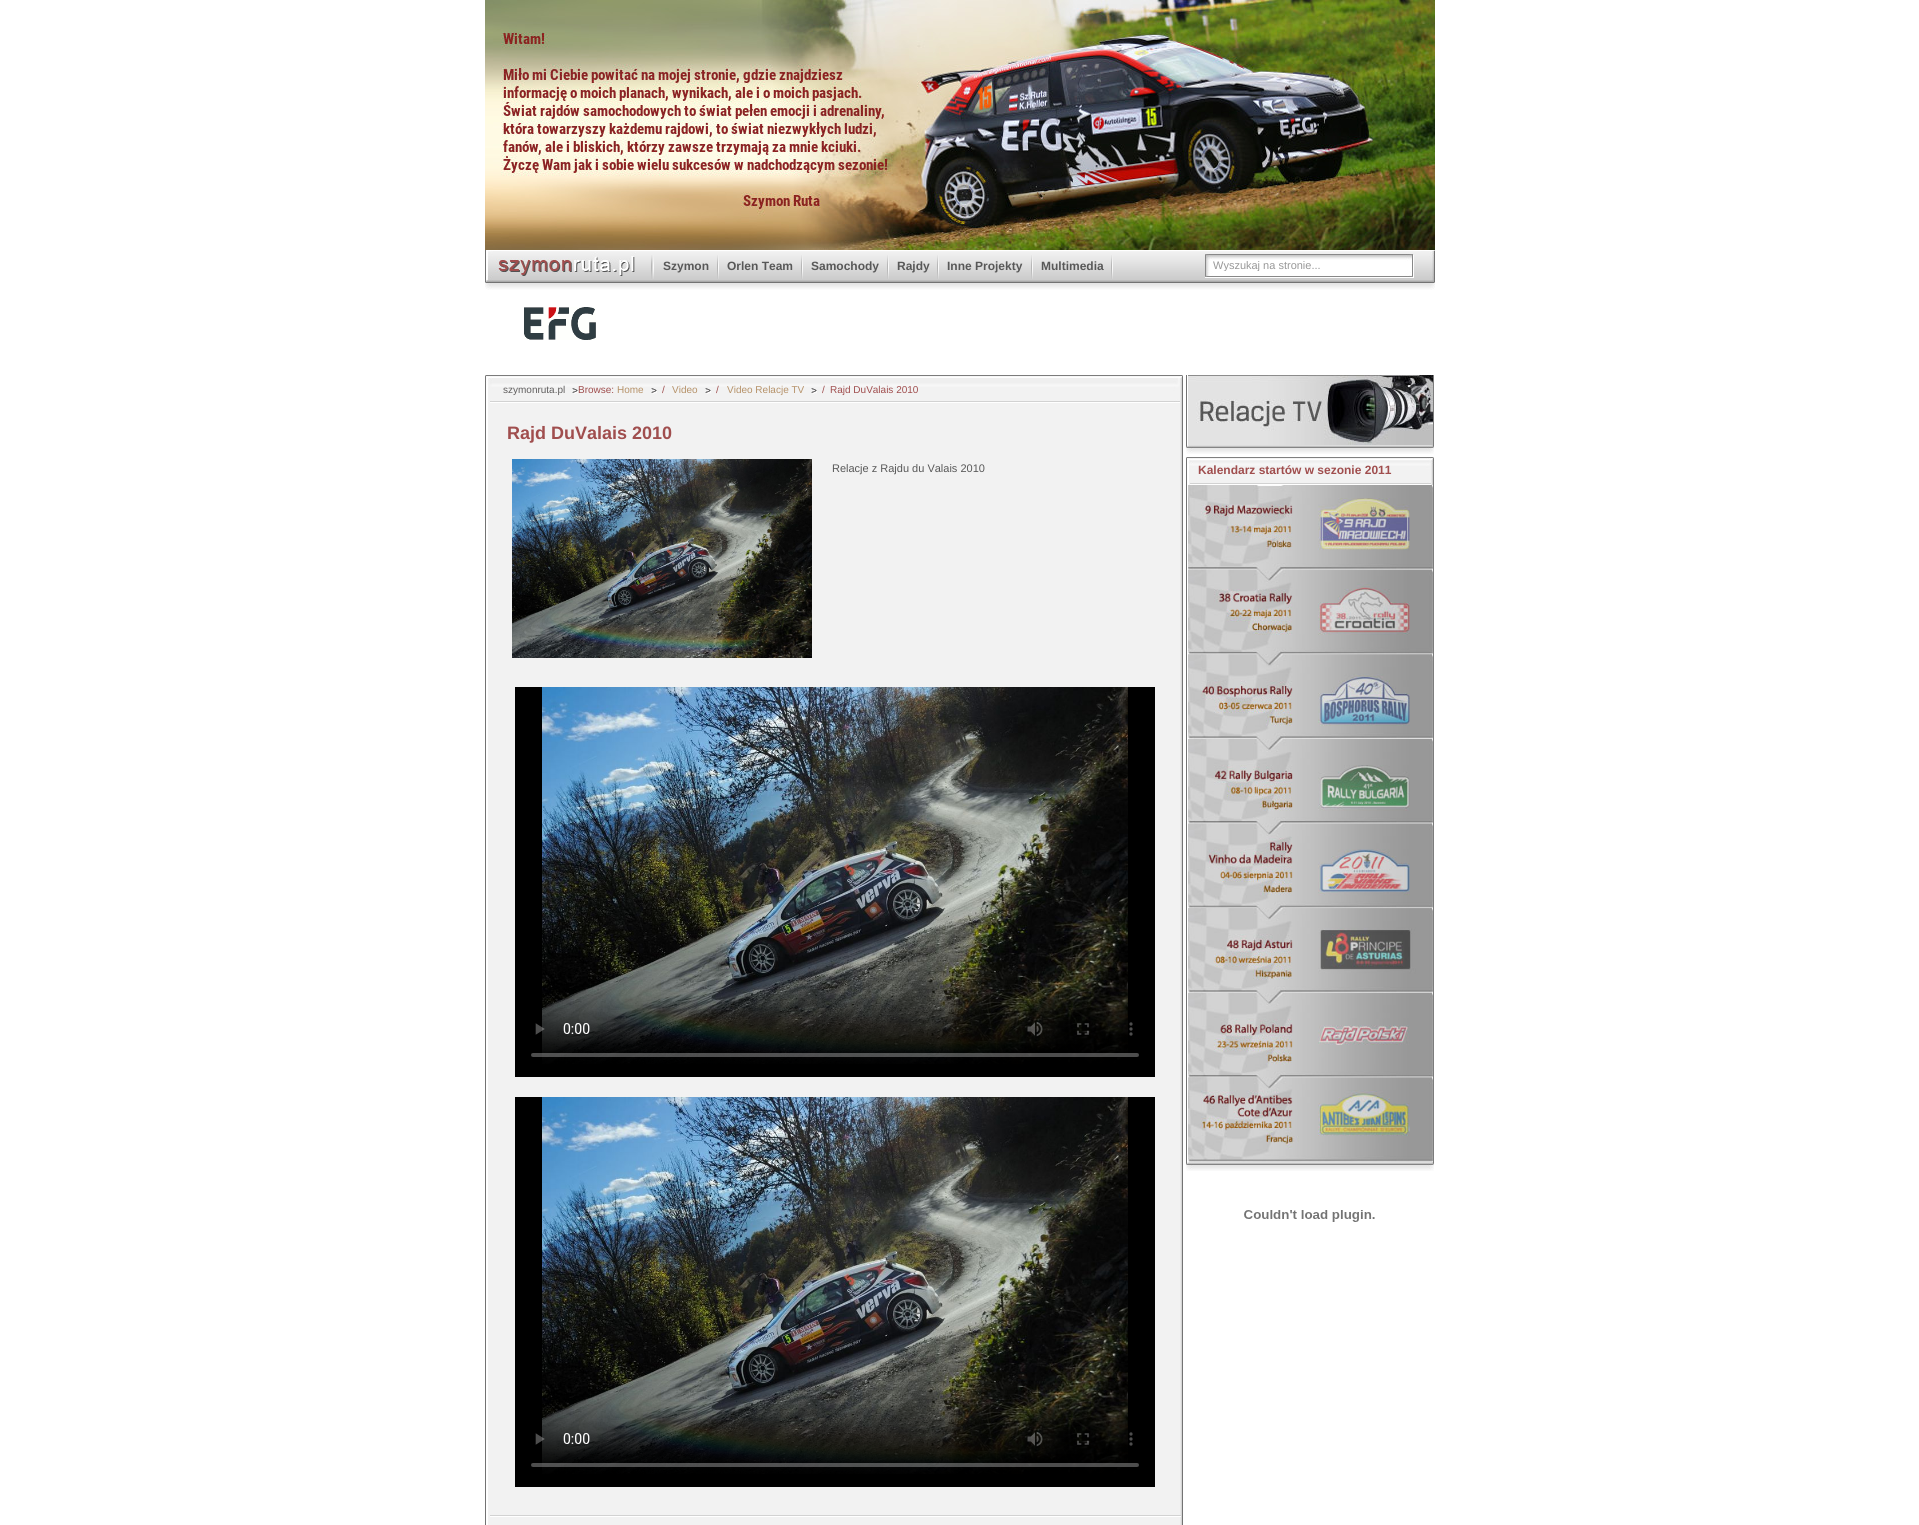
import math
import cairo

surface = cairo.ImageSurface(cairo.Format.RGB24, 1919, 1525)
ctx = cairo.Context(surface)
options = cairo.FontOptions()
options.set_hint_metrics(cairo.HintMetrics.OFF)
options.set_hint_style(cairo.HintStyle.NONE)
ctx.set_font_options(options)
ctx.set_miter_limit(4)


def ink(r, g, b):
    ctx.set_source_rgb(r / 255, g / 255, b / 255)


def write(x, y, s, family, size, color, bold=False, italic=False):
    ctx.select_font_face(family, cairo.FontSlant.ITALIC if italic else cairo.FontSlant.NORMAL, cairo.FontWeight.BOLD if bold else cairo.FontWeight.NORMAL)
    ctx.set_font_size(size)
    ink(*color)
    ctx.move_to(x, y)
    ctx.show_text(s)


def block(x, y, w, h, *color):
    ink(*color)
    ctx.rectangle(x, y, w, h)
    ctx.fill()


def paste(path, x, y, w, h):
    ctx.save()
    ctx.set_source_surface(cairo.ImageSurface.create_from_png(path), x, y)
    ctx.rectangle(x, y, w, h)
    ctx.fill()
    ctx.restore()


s1 = dict(family="Liberation Sans", size=12, color=(88, 88, 88), bold=True)
s2 = dict(family="Liberation Sans", size=11, color=(152, 152, 152))
s3 = dict(family="Liberation Sans", size=10, color=(97, 95, 95))
s4 = dict(family="Liberation Sans", size=10, color=(160, 78, 78))
s5 = dict(family="Liberation Sans", size=10, color=(182, 146, 105))
s6 = dict(family="Liberation Sans", size=18, color=(160, 78, 78), bold=True)
s7 = dict(family="Liberation Sans", size=11, color=(88, 88, 88))
s8 = dict(family="Liberation Sans", size=12, color=(160, 78, 78), bold=True)

ink(255, 255, 255)
ctx.paint()
paste("pic1.png", 485, 0, 950, 250)
paste("pic2.png", 485, 250, 950, 40)
paste("pic3.png", 495, 252, 141, 24)
paste("pic4.png", 651, 255, 3, 24)
paste("pic5.png", 717, 255, 2, 24)
write(663, 270, "Szymon", **s1)
paste("pic5.png", 801, 255, 2, 24)
write(727, 270, "Orlen Team", **s1)
paste("pic5.png", 887, 255, 2, 24)
write(811, 270, "Samochody", **s1)
paste("pic5.png", 937, 255, 2, 24)
write(897, 270, "Rajdy", **s1)
paste("pic5.png", 1031, 255, 2, 24)
write(947, 270, "Inne Projekty", **s1)
paste("pic5.png", 1111, 255, 2, 24)
write(1041, 270, "Multimedia", **s1)
paste("pic6.png", 1205, 254, 209, 24)
ctx.save()
ctx.rectangle(1213, 259, 193, 12)
ctx.clip()
write(1213, 269, "Wyszukaj na stronie...", **s2)
ctx.restore()
paste("pic7.png", 524, 307, 72, 33)
paste("pic8.png", 485, 403, 698, 1122)
paste("pic9.png", 485, 375, 698, 28)
write(503, 393, "szymonruta.pl", **s3)
paste("pic10.png", 572, 388, 6, 6)
write(578, 393, "Browse:", **s4)
write(617, 393, "Home", **s5)
paste("pic10.png", 651, 388, 6, 6)
write(662, 393, "/", **s4)
write(672, 393, "Video", **s5)
paste("pic10.png", 705, 388, 6, 6)
write(716, 393, "/", **s4)
write(727, 393, "Video Relacje TV", **s5)
paste("pic10.png", 811, 388, 6, 6)
write(822, 393, "/", **s4)
write(830, 393, "Rajd DuValais 2010", **s4)
paste("pic11.png", 490, 1515, 691, 2)
write(507, 439, "Rajd DuValais 2010", **s6)
paste("pic12.png", 512, 459, 300, 199)
write(832, 472, "Relacje z Rajdu du Valais 2010", **s7)
block(515, 687, 640, 390, 0, 0, 0)
paste("pic13.png", 531, 687, 608, 377)
block(515, 1097, 640, 390, 0, 0, 0)
paste("pic14.png", 531, 1097, 608, 377)
paste("pic15.png", 1186, 445, 248, 9)
paste("pic16.png", 1186, 375, 248, 70)
paste("pic17.png", 1188, 375, 245, 70)
paste("pic18.png", 1186, 457, 248, 28)
write(1198, 474, "Kalendarz startów w sezonie 2011", **s8)
paste("pic15.png", 1186, 1162, 248, 9)
paste("pic19.png", 1186, 485, 248, 677)
paste("pic20.png", 1188, 485, 245, 677)
paste("pic21.png", 1244, 1210, 131, 12)
surface.write_to_png("screenshot.png")
